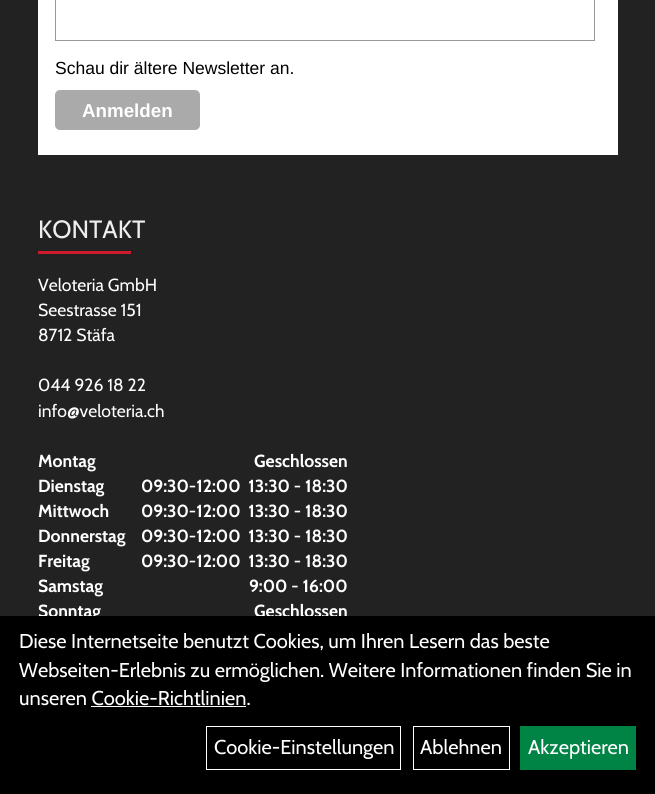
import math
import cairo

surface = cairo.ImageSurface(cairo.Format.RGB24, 655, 794)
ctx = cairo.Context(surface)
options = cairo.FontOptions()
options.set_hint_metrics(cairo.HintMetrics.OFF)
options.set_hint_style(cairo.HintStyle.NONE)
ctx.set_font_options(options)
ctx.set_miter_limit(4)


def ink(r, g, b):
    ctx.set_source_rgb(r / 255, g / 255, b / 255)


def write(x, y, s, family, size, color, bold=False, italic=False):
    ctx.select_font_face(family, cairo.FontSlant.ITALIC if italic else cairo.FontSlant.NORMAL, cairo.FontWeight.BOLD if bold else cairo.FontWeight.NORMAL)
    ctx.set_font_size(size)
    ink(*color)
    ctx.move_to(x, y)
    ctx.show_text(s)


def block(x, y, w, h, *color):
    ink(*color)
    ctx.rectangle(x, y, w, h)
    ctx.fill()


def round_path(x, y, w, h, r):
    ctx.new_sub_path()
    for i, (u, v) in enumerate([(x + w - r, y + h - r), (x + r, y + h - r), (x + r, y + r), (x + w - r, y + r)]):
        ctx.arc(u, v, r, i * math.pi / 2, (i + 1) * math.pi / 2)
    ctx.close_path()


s1 = dict(family="Liberation Sans", size=17.5, color=(0, 0, 0))
s2 = dict(family="Liberation Sans", size=18.75, color=(255, 255, 255), bold=True)
s3 = dict(family="Cabin", size=25, color=(238, 238, 238))
s4 = dict(family="Cabin", size=17.5, color=(255, 255, 255))
s5 = dict(family="Cabin", size=17.5, color=(255, 255, 255), bold=True)
s6 = dict(family="Cabin", size=20, color=(255, 255, 255))

ink(34, 34, 34)
ctx.paint()
block(38, 0, 580, 155, 255, 255, 255)
ctx.rectangle(55.5, -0.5, 539, 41)
ink(153, 153, 153)
ctx.set_line_width(1)
ctx.stroke()
write(55, 74, "Schau dir ältere Newsletter an.", **s1)
ink(170, 170, 170)
round_path(55, 90, 145, 40, 5)
ctx.fill()
write(82, 117, "Anmelden", **s2)
write(38, 238, "KONTAKT", **s3)
block(38, 251, 93, 3, 206, 26, 43)
write(38, 291, "Veloteria GmbH", **s4)
write(38, 316, "Seestrasse 151", **s4)
write(38, 341, "8712 Stäfa", **s4)
write(38, 391, "044 926 18 22", **s4)
write(38, 417, "info@veloteria.ch", **s4)
write(38, 467, "Montag", **s5)
write(254, 467, "Geschlossen", **s5)
write(38, 492, "Dienstag", **s5)
write(141, 492, "09:30-12:00  13:30 - 18:30", **s5)
write(38, 517, "Mittwoch", **s5)
write(141, 517, "09:30-12:00  13:30 - 18:30", **s5)
write(38, 542, "Donnerstag", **s5)
write(141, 542, "09:30-12:00  13:30 - 18:30", **s5)
write(38, 567, "Freitag", **s5)
write(141, 567, "09:30-12:00  13:30 - 18:30", **s5)
write(38, 592, "Samstag", **s5)
write(249, 592, "9:00 - 16:00", **s5)
write(38, 617, "Sonntag", **s5)
write(254, 617, "Geschlossen", **s5)
block(0, 616, 655, 178, 0, 0, 0)
write(19, 648, "Diese Internetseite benutzt Cookies, um Ihren Lesern das beste", **s6)
write(19, 677, "Webseiten-Erlebnis zu ermöglichen. Weitere Informationen finden Sie in", **s6)
write(19, 705, "unseren Cookie-Richtlinien.", **s6)
block(91, 706, 155, 1, 255, 255, 255)
ctx.rectangle(206.5, 726.5, 194, 43)
ctx.stroke()
write(214, 754, "Cookie-Einstellungen", **s6)
ctx.rectangle(413.5, 726.5, 96, 43)
ctx.stroke()
write(420, 754, "Ablehnen", **s6)
block(520, 726, 116, 44, 0, 132, 70)
write(528, 754, "Akzeptieren", **s6)
surface.write_to_png("screenshot.png")
